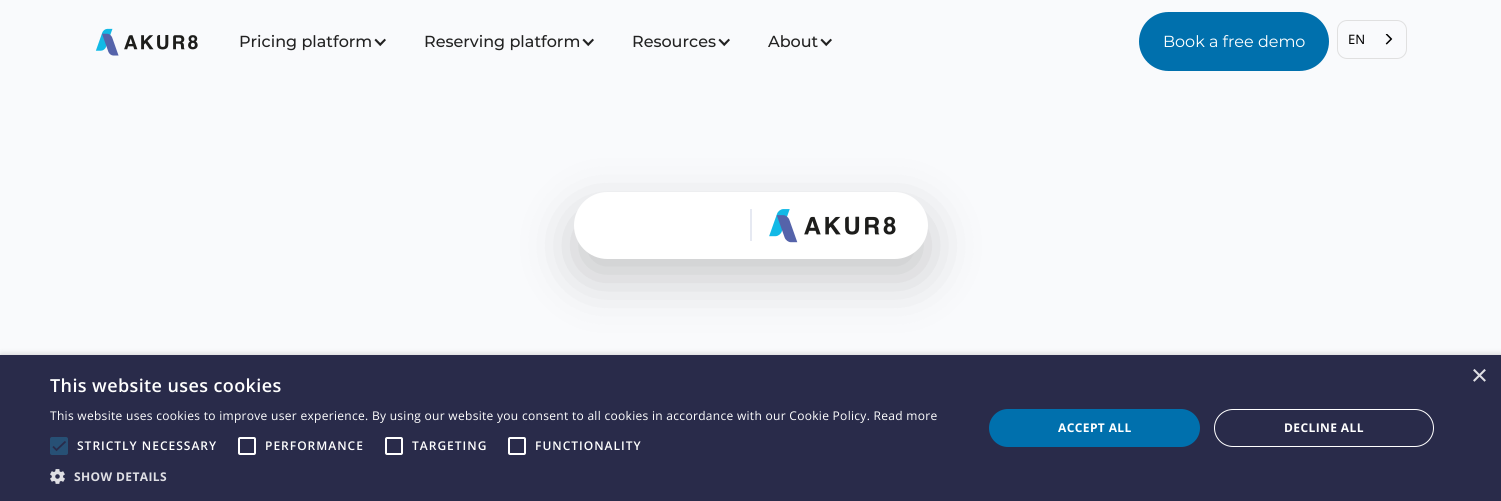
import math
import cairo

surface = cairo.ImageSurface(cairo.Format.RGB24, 1501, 501)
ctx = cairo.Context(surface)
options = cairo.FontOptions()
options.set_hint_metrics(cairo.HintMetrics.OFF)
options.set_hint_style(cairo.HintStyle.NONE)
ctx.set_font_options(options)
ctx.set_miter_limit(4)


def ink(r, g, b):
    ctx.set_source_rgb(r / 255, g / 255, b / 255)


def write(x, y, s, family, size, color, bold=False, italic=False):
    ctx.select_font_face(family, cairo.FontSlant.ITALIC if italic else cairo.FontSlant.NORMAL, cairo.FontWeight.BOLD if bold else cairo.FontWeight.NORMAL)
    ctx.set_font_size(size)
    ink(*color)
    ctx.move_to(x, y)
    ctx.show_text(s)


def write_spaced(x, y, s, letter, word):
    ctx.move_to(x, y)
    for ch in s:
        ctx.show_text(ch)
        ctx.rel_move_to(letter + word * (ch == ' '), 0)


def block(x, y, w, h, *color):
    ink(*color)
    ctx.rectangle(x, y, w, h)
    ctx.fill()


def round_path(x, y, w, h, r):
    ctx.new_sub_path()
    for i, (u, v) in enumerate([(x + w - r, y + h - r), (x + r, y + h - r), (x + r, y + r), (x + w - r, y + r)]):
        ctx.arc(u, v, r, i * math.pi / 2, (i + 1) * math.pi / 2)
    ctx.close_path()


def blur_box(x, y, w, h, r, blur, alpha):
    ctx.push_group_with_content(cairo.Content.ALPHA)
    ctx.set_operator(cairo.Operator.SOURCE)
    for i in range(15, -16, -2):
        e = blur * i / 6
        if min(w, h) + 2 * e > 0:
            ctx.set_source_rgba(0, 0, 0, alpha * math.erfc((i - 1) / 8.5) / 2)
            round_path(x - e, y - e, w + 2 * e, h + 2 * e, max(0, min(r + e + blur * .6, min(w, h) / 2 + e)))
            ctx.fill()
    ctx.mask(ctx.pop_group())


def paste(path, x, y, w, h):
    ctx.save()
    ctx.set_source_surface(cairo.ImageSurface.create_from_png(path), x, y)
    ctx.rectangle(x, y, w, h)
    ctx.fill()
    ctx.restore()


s1 = dict(family="Montserrat Medium", size=16, color=(34, 34, 34))
s2 = dict(family="Montserrat", size=16, color=(255, 255, 255))
s3 = dict(family="Noto Sans", size=13, color=(0, 0, 0))
s4 = dict(family="Liberation Sans", size=29, color=(223, 223, 228))

ink(249, 250, 252)
ctx.paint()
paste("pic1.png", 95, 28, 103, 28)
write(239, 47, "Pricing platform", **s1)
paste("pic2.png", 374, 38, 12, 9)
write(424, 47, "Reserving platform", **s1)
paste("pic2.png", 582, 38, 12, 9)
write(632, 47, "Resources", **s1)
paste("pic2.png", 718, 38, 12, 9)
write(768, 47, "About", **s1)
paste("pic2.png", 820, 38, 12, 9)
ink(0, 112, 173)
round_path(1139, 12, 190, 59, 29.5)
ctx.fill()
write(1163, 47, "Book a free demo", **s2)
round_path(1337.5, 20.5, 69, 38, 9.5)
ink(224, 224, 224)
ctx.set_line_width(1)
ctx.stroke()
write(1348, 44, "EN", **s3)
paste("pic3.png", 1385, 34, 8, 11)
ink(0, 0, 0)
blur_box(574, 212, 354, 67, 33.5, 25, 0.2)
ink(255, 255, 255)
round_path(574, 192, 354, 67, 33.5)
ctx.fill()
block(750, 209, 2, 32, 230, 233, 242)
paste("pic4.png", 769, 209, 127, 34)
ink(0, 0, 0)
blur_box(1, 357, 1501, 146, 0, 4, 0.35)
block(0, 355, 1501, 146, 41, 43, 74)
write(1471, 385, "×", **s4)
ctx.select_font_face("Open Sans SemiBold")
ctx.set_font_size(18)
ink(255, 255, 255)
write_spaced(50, 392, "This website uses cookies", 0.4, 0)
ctx.select_font_face("Open Sans")
ctx.set_font_size(12)
write_spaced(50, 420, "This website uses cookies to improve user experience. By using our website you consent to all cookies in accordance with our Cookie Policy. Read more", 0.3, 0)
ink(39, 80, 117)
round_path(50, 437, 18, 18, 2)
ctx.fill()
ctx.new_path()
ctx.move_to(53, 446.5)
ctx.line_to(56.5, 450)
ctx.line_to(65.5, 441.5)
ink(41, 43, 74)
ctx.set_line_width(1.8)
ctx.stroke()
ctx.select_font_face("Open Sans SemiBold")
ink(255, 255, 255)
write_spaced(77, 450, "STRICTLY NECESSARY", 1, 0)
round_path(239, 438, 16, 16, 1)
ctx.set_line_width(2)
ctx.stroke()
write_spaced(265, 450, "PERFORMANCE", 1, 0)
round_path(386, 438, 16, 16, 1)
ctx.stroke()
write_spaced(412, 450, "TARGETING", 1, 0)
round_path(509, 438, 16, 16, 1)
ctx.stroke()
write_spaced(535, 450, "FUNCTIONALITY", 1, 0)
paste("pic5.png", 50, 469, 15, 15)
ctx.select_font_face("Open Sans", cairo.FontSlant.NORMAL, cairo.FontWeight.BOLD)
ink(223, 223, 228)
write_spaced(74, 481, "SHOW DETAILS", 0.4, 0)
ink(0, 112, 173)
round_path(989, 409, 211, 38, 19)
ctx.fill()
ink(255, 255, 255)
write_spaced(1058, 432, "ACCEPT ALL", 0.4, 0)
round_path(1214.5, 409.5, 219, 37, 18.5)
ctx.set_line_width(1)
ctx.stroke()
write_spaced(1284, 432, "DECLINE ALL", 0.4, 0)
surface.write_to_png("screenshot.png")
